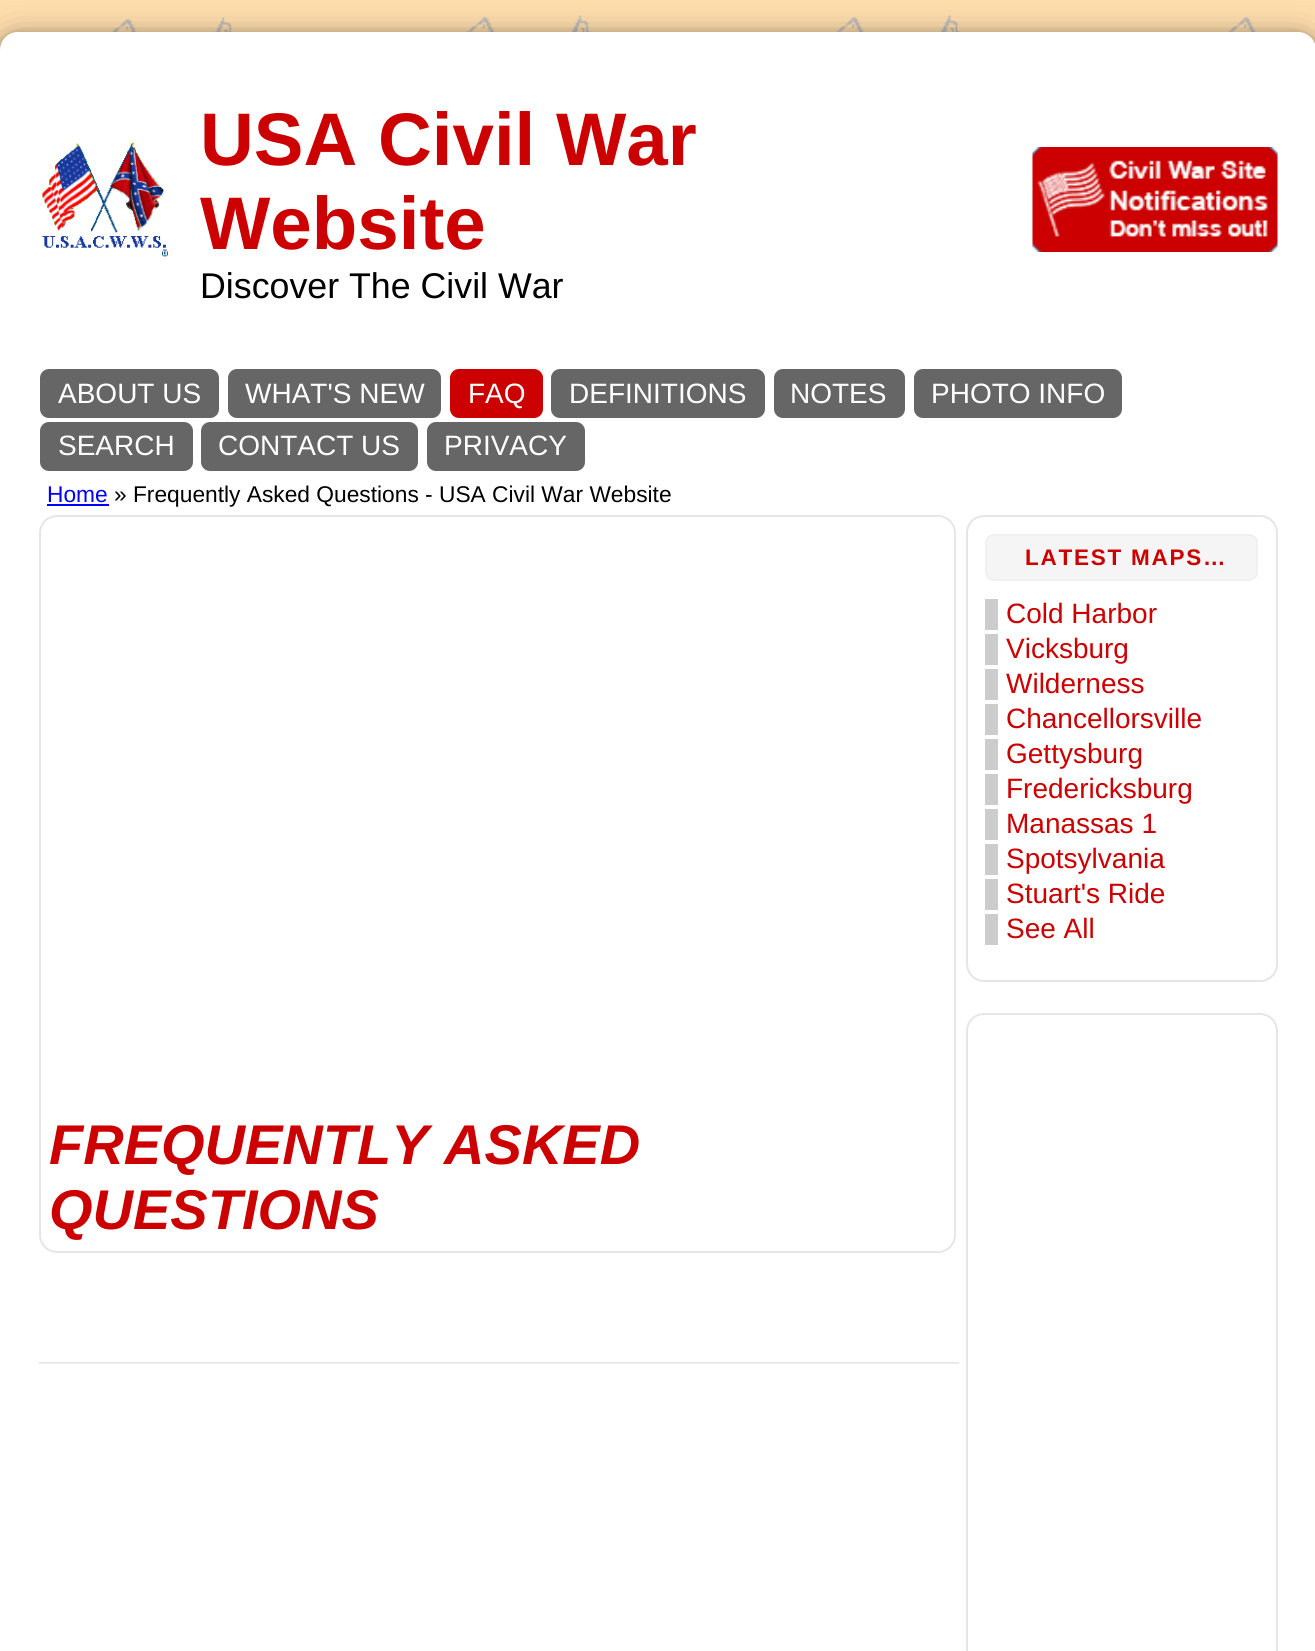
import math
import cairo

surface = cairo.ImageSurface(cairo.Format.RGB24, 1315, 1651)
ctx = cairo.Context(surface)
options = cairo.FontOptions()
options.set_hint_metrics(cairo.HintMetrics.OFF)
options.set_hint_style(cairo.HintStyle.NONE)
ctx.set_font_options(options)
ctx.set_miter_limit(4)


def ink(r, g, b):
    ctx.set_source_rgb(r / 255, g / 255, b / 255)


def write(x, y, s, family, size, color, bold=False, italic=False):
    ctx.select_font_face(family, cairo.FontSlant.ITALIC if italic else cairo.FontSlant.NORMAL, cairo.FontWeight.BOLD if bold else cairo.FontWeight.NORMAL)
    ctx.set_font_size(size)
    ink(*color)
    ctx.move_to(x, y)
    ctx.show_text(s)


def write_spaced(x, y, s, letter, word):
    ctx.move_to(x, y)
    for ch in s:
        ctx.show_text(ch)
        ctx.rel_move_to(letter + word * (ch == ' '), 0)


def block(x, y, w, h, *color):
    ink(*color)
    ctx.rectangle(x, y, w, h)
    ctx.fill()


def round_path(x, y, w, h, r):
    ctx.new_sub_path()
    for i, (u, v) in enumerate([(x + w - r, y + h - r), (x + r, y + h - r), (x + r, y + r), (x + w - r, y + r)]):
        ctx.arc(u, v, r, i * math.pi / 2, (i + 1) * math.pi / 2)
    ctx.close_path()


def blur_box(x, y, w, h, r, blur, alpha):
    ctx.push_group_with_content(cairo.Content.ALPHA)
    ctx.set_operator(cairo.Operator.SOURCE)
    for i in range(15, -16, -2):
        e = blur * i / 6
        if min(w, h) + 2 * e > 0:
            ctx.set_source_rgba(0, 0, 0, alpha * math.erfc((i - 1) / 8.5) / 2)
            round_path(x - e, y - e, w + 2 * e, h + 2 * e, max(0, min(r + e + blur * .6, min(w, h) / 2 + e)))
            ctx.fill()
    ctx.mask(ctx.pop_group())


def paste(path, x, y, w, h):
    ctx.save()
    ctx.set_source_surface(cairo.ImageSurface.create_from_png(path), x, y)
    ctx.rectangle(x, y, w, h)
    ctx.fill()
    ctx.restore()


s1 = dict(family="Liberation Sans", size=74.5, color=(204, 0, 0), bold=True)
s2 = dict(family="Liberation Sans", size=35.75, color=(0, 0, 0))
s3 = dict(family="Liberation Sans", size=28, color=(255, 255, 255))
s4 = dict(family="Liberation Sans", size=22.75, color=(0, 0, 255))
s5 = dict(family="Liberation Sans", size=22.75, color=(0, 0, 0))
s6 = dict(family="Liberation Sans", size=28, color=(204, 0, 0))
s7 = dict(family="Liberation Sans", size=56, color=(204, 0, 0), bold=True, italic=True)

ink(255, 222, 173)
ctx.paint()
paste("pic1.png", 62, 15, 1253, 29)
ink(0, 0, 0)
blur_box(0, 42, 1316, 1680, 18, 17.5, 0.49)
blur_box(0, 39, 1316, 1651, 18, 7, 0.5)
ink(255, 255, 255)
round_path(0, 32, 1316, 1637, 18)
ctx.fill()
paste("pic2.png", 41, 142, 127, 115)
write(200, 165, "USA Civil War", **s1)
write(200, 249, "Website", **s1)
write(200, 298, "Discover The Civil War", **s2)
paste("pic3.png", 1032, 147, 246, 105)
ink(102, 102, 102)
round_path(40, 369, 179, 49, 9)
ctx.fill()
write(58, 403, "ABOUT US", **s3)
ink(102, 102, 102)
round_path(228, 369, 213, 49, 9)
ctx.fill()
write(245, 403, "WHAT'S NEW", **s3)
ink(204, 0, 0)
round_path(450, 369, 93, 49, 9)
ctx.fill()
write(468, 403, "FAQ", **s3)
ink(102, 102, 102)
round_path(551, 369, 214, 49, 9)
ctx.fill()
write(569, 403, "DEFINITIONS", **s3)
ink(102, 102, 102)
round_path(774, 369, 131, 49, 9)
ctx.fill()
write(790, 403, "NOTES", **s3)
ink(102, 102, 102)
round_path(914, 369, 208, 49, 9)
ctx.fill()
write(931, 403, "PHOTO INFO", **s3)
ink(102, 102, 102)
round_path(40, 422, 153, 49, 9)
ctx.fill()
write(58, 455, "SEARCH", **s3)
ink(102, 102, 102)
round_path(201, 422, 217, 49, 9)
ctx.fill()
write(218, 455, "CONTACT US", **s3)
ink(102, 102, 102)
round_path(427, 422, 158, 49, 9)
ctx.fill()
write(444, 455, "PRIVACY", **s3)
write(47, 502, "Home", **s4)
block(47, 504, 62, 2, 0, 0, 255)
write(114, 502, "» Frequently Asked Questions - USA Civil War Website", **s5)
round_path(967, 516, 310, 465, 17)
ink(230, 230, 230)
ctx.stroke()
ink(245, 245, 245)
round_path(986, 535, 271, 45, 8)
ctx.fill_preserve()
ink(240, 240, 240)
ctx.stroke()
ctx.select_font_face("Liberation Sans", cairo.FontSlant.NORMAL, cairo.FontWeight.BOLD)
ctx.set_font_size(22.5)
ink(204, 0, 0)
write_spaced(1025, 565, "LATEST MAPS…", 1.75, 0)
block(985, 599, 13, 31, 204, 204, 204)
write(1006, 623, "Cold Harbor", **s6)
block(985, 634, 13, 31, 204, 204, 204)
write(1006, 658, "Vicksburg", **s6)
block(985, 669, 13, 31, 204, 204, 204)
write(1006, 693, "Wilderness", **s6)
block(985, 704, 13, 31, 204, 204, 204)
write(1006, 728, "Chancellorsville", **s6)
block(985, 739, 13, 31, 204, 204, 204)
write(1006, 763, "Gettysburg", **s6)
block(985, 774, 13, 31, 204, 204, 204)
write(1006, 798, "Fredericksburg", **s6)
block(985, 809, 13, 31, 204, 204, 204)
write(1006, 833, "Manassas 1", **s6)
block(985, 844, 13, 31, 204, 204, 204)
write(1006, 868, "Spotsylvania", **s6)
block(985, 879, 13, 31, 204, 204, 204)
write(1006, 903, "Stuart's Ride", **s6)
block(985, 914, 13, 31, 204, 204, 204)
write(1006, 938, "See All", **s6)
round_path(967, 1014, 310, 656, 17)
ink(230, 230, 230)
ctx.stroke()
round_path(40, 516, 915, 736, 17)
ctx.stroke()
write(49, 1164, "FREQUENTLY ASKED", **s7)
write(49, 1229, "QUESTIONS", **s7)
block(39, 1362, 920, 2, 230, 230, 230)
ctx.set_source_rgba(1, 1, 1, 0.3)
ctx.rectangle(39, 1363, 920, 1)
ctx.fill()
surface.write_to_png("screenshot.png")
